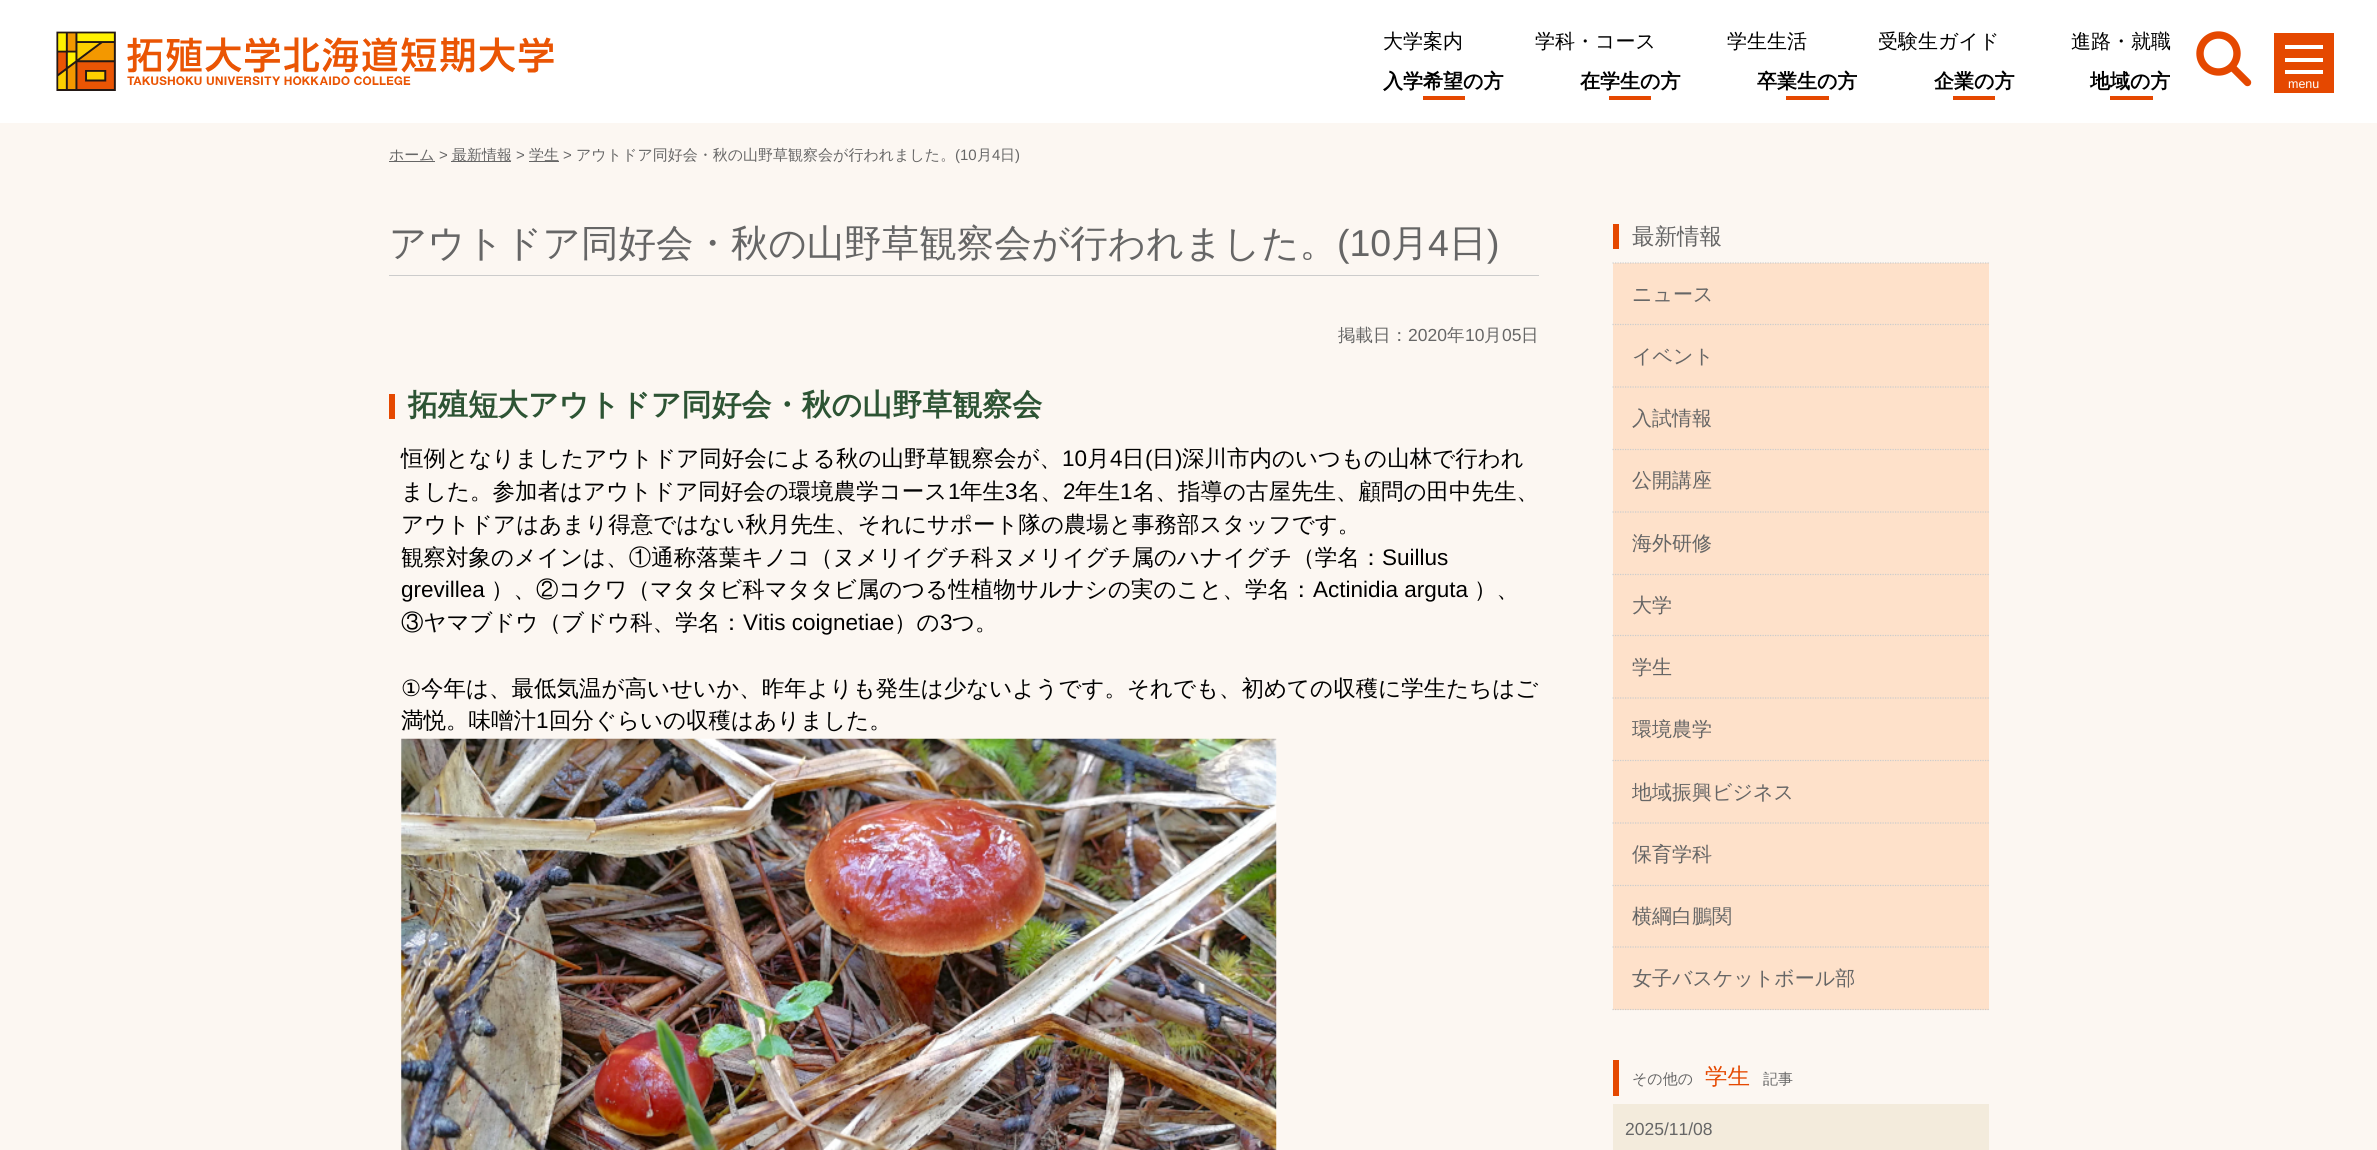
import math
import cairo

surface = cairo.ImageSurface(cairo.Format.RGB24, 2377, 1150)
ctx = cairo.Context(surface)
options = cairo.FontOptions()
options.set_hint_metrics(cairo.HintMetrics.OFF)
options.set_hint_style(cairo.HintStyle.NONE)
ctx.set_font_options(options)
ctx.set_miter_limit(4)


def ink(r, g, b):
    ctx.set_source_rgb(r / 255, g / 255, b / 255)


def write(x, y, s, family, size, color, bold=False, italic=False):
    ctx.select_font_face(family, cairo.FontSlant.ITALIC if italic else cairo.FontSlant.NORMAL, cairo.FontWeight.BOLD if bold else cairo.FontWeight.NORMAL)
    ctx.set_font_size(size)
    ink(*color)
    ctx.move_to(x, y)
    ctx.show_text(s)


def block(x, y, w, h, *color):
    ink(*color)
    ctx.rectangle(x, y, w, h)
    ctx.fill()


def paste(path, x, y, w, h):
    ctx.save()
    ctx.set_source_surface(cairo.ImageSurface.create_from_png(path), x, y)
    ctx.rectangle(x, y, w, h)
    ctx.fill()
    ctx.restore()


s1 = dict(family="WenQuanYi Zen Hei Medium", size=20, color=(0, 0, 0))
s2 = dict(family="WenQuanYi Zen Hei", size=20, color=(0, 0, 0), bold=True)
s3 = dict(family="Liberation Sans", size=12.5, color=(255, 255, 255))
s4 = dict(family="WenQuanYi Zen Hei Medium", size=15, color=(102, 102, 102))
s5 = dict(family="Liberation Sans", size=15, color=(102, 102, 102))
s6 = dict(family="WenQuanYi Zen Hei Medium", size=37.5, color=(102, 102, 102))
s7 = dict(family="Liberation Sans", size=37.5, color=(102, 102, 102))
s8 = dict(family="WenQuanYi Zen Hei Medium", size=17.5, color=(102, 102, 102))
s9 = dict(family="Liberation Sans", size=17.5, color=(102, 102, 102))
s10 = dict(family="WenQuanYi Zen Hei", size=30, color=(45, 84, 52), bold=True)
s11 = dict(family="WenQuanYi Zen Hei Medium", size=22.5, color=(0, 0, 0))
s12 = dict(family="Liberation Sans", size=22.5, color=(0, 0, 0))
s13 = dict(family="DejaVu Sans", size=22.5, color=(0, 0, 0))
s14 = dict(family="WenQuanYi Zen Hei Medium", size=22.5, color=(102, 102, 102))
s15 = dict(family="WenQuanYi Zen Hei Medium", size=20, color=(102, 102, 102))
s16 = dict(family="WenQuanYi Zen Hei Medium", size=22.5, color=(229, 72, 0))

ink(255, 255, 255)
ctx.paint()
paste("pic1.png", 56, 31, 498, 60)
write(1383, 48, "大学案内", **s1)
write(1535, 48, "学科・コース", **s1)
write(1727, 48, "学生生活", **s1)
write(1878, 48, "受験生ガイド", **s1)
write(2071, 48, "進路・就職", **s1)
write(1383, 88, "入学希望の方", **s2)
block(1423, 96, 42, 4, 229, 72, 0)
write(1580, 88, "在学生の方", **s2)
block(1609, 96, 42, 4, 229, 72, 0)
write(1757, 88, "卒業生の方", **s2)
block(1786, 96, 43, 4, 229, 72, 0)
write(1934, 88, "企業の方", **s2)
block(1953, 96, 42, 4, 229, 72, 0)
write(2090, 88, "地域の方", **s2)
block(2110, 96, 43, 4, 229, 72, 0)
ctx.new_path()
ctx.arc(2218.5, 53.5, 18.5, 0, 2 * math.pi)
ctx.set_line_width(7.4)
ctx.stroke()
ctx.new_path()
ctx.move_to(2247.5, 82.5)
ctx.line_to(2232, 67)
ctx.set_line_cap(cairo.LineCap.ROUND)
ctx.set_line_join(cairo.LineJoin.ROUND)
ctx.stroke()
block(2274, 33, 60, 60, 229, 72, 0)
block(2285, 45, 38, 4, 255, 255, 255)
block(2285, 58, 38, 4, 255, 255, 255)
block(2285, 70, 38, 4, 255, 255, 255)
write(2288, 88, "menu", **s3)
block(0, 123, 2377, 1027, 252, 247, 242)
block(389, 161, 46, 1, 102, 102, 102)
write(389, 160, "ホーム", **s4)
write(439, 160, ">", **s5)
block(451, 161, 60, 1, 102, 102, 102)
write(452, 160, "最新情報", **s4)
write(516, 160, ">", **s5)
block(529, 161, 30, 1, 102, 102, 102)
write(529, 160, "学生", **s4)
write(563, 160, ">", **s5)
write(576, 160, "アウトドア同好会・秋の山野草観察会が行われました。", **s4)
write(955, 160, "(10", **s5)
write(977, 160, "月", **s4)
write(992, 160, "4", **s5)
write(1000, 160, "日", **s4)
write(1015, 160, ")", **s5)
block(389, 275, 1150, 1, 204, 204, 204)
write(389, 256, "アウトドア同好会・秋の山野草観察会が行われました。", **s6)
write(1337, 256, "(10", **s7)
write(1391, 256, "月", **s6)
write(1428, 256, "4", **s7)
write(1449, 256, "日", **s6)
write(1487, 256, ")", **s7)
write(1338, 341, "掲載日：", **s8)
write(1408, 341, "2020", **s9)
write(1447, 341, "年", **s8)
write(1465, 341, "10", **s9)
write(1484, 341, "月", **s8)
write(1502, 341, "05", **s9)
write(1521, 341, "日", **s8)
block(389, 394, 6, 25, 229, 72, 0)
write(408, 415, "拓殖短大アウトドア同好会・秋の山野草観察会", **s10)
write(401, 466, "恒例となりましたアウトドア同好会による秋の山野草観察会が、", **s11)
write(1062, 466, "10", **s12)
write(1087, 466, "月", **s11)
write(1110, 466, "4", **s12)
write(1122, 466, "日", **s11)
write(1145, 466, "(", **s12)
write(1152, 466, "日", **s11)
write(1175, 466, ")", **s12)
write(1182, 466, "深川市内のいつもの山林で行われ", **s11)
write(401, 499, "ました。参加者はアウトドア同好会の環境農学コース", **s11)
write(948, 499, "1", **s12)
write(960, 499, "年生", **s11)
write(1005, 499, "3", **s12)
write(1018, 499, "名、", **s11)
write(1063, 499, "2", **s12)
write(1075, 499, "年生", **s11)
write(1120, 499, "1", **s12)
write(1133, 499, "名、指導の古屋先生、顧問の田中先生、", **s11)
write(401, 532, "アウトドアはあまり得意ではない秋月先生、それにサポート隊の農場と事務部スタッフです。", **s11)
write(401, 565, "観察対象のメインは、①通称落葉キノコ（ヌメリイグチ科ヌメリイグチ属のハナイグチ（学名：", **s11)
write(1382, 565, "Suillus", **s12)
write(401, 597, "grevillea", **s12)
write(491, 597, "）、②コクワ（マタタビ科マタタビ属のつる性植物サルナシの実のこと、学名：", **s11)
write(1313, 597, "Actinidia arguta", **s12)
write(1474, 597, "）、", **s11)
write(401, 630, "③ヤマブドウ（ブドウ科、学名：", **s11)
write(743, 630, "Vitis coignetiae", **s12)
write(894, 630, "）の", **s11)
write(940, 630, "3", **s12)
write(952, 630, "つ。", **s11)
write(401, 696, "①", **s13)
write(421, 696, "今年は、最低気温が高いせいか、昨年よりも発生は少ないようです。それでも、初めての収穫に学生たちはご", **s11)
write(401, 728, "満悦。味噌汁", **s11)
write(536, 728, "1", **s12)
write(549, 728, "回分ぐらいの収穫はありました。", **s11)
paste("pic2.png", 401, 738, 876, 412)
write(1632, 244, "最新情報", **s14)
block(1613, 224, 6, 25, 229, 72, 0)
block(1613, 263, 376, 747, 254, 225, 202)
ctx.new_path()
ctx.move_to(1612.5, 263)
ctx.line_to(1989, 263)
ink(204, 204, 204)
ctx.set_line_width(1.2)
ctx.set_line_cap(cairo.LineCap.BUTT)
ctx.set_line_join(cairo.LineJoin.MITER)
ctx.set_dash([1.25, 1.25])
ctx.stroke()
write(1632, 301, "ニュース", **s15)
ctx.new_path()
ctx.move_to(1612.5, 324.5)
ctx.line_to(1989, 324.5)
ink(204, 204, 204)
ctx.stroke()
write(1632, 363, "イベント", **s15)
ctx.new_path()
ctx.move_to(1612.5, 387)
ctx.line_to(1989, 387)
ink(204, 204, 204)
ctx.stroke()
write(1632, 425, "入試情報", **s15)
ctx.new_path()
ctx.move_to(1612.5, 449.5)
ctx.line_to(1989, 449.5)
ink(204, 204, 204)
ctx.stroke()
write(1632, 487, "公開講座", **s15)
ctx.new_path()
ctx.move_to(1612.5, 512)
ctx.line_to(1989, 512)
ink(204, 204, 204)
ctx.stroke()
write(1632, 550, "海外研修", **s15)
ctx.new_path()
ctx.move_to(1612.5, 574.5)
ctx.line_to(1989, 574.5)
ink(204, 204, 204)
ctx.stroke()
write(1632, 612, "大学", **s15)
ctx.new_path()
ctx.move_to(1612.5, 635.5)
ctx.line_to(1989, 635.5)
ink(204, 204, 204)
ctx.stroke()
write(1632, 674, "学生", **s15)
ctx.new_path()
ctx.move_to(1612.5, 698)
ctx.line_to(1989, 698)
ink(204, 204, 204)
ctx.stroke()
write(1632, 736, "環境農学", **s15)
ctx.new_path()
ctx.move_to(1612.5, 760.5)
ctx.line_to(1989, 760.5)
ink(204, 204, 204)
ctx.stroke()
write(1632, 799, "地域振興ビジネス", **s15)
ctx.new_path()
ctx.move_to(1612.5, 823)
ctx.line_to(1989, 823)
ink(204, 204, 204)
ctx.stroke()
write(1632, 861, "保育学科", **s15)
ctx.new_path()
ctx.move_to(1612.5, 885.5)
ctx.line_to(1989, 885.5)
ink(204, 204, 204)
ctx.stroke()
write(1632, 923, "横綱白鵬関", **s15)
ctx.new_path()
ctx.move_to(1612.5, 947)
ctx.line_to(1989, 947)
ink(204, 204, 204)
ctx.stroke()
ctx.new_path()
ctx.move_to(1612.5, 1009.5)
ctx.line_to(1989, 1009.5)
ctx.stroke()
write(1632, 985, "女子バスケットボール部", **s15)
block(1613, 1060, 6, 36, 229, 72, 0)
write(1632, 1084, "その他の", **s4)
write(1705, 1084, "学生", **s16)
write(1763, 1084, "記事", **s4)
block(1613, 1104, 376, 46, 243, 235, 220)
write(1625, 1135, "2025/11/08", **s9)
surface.write_to_png("screenshot.png")
